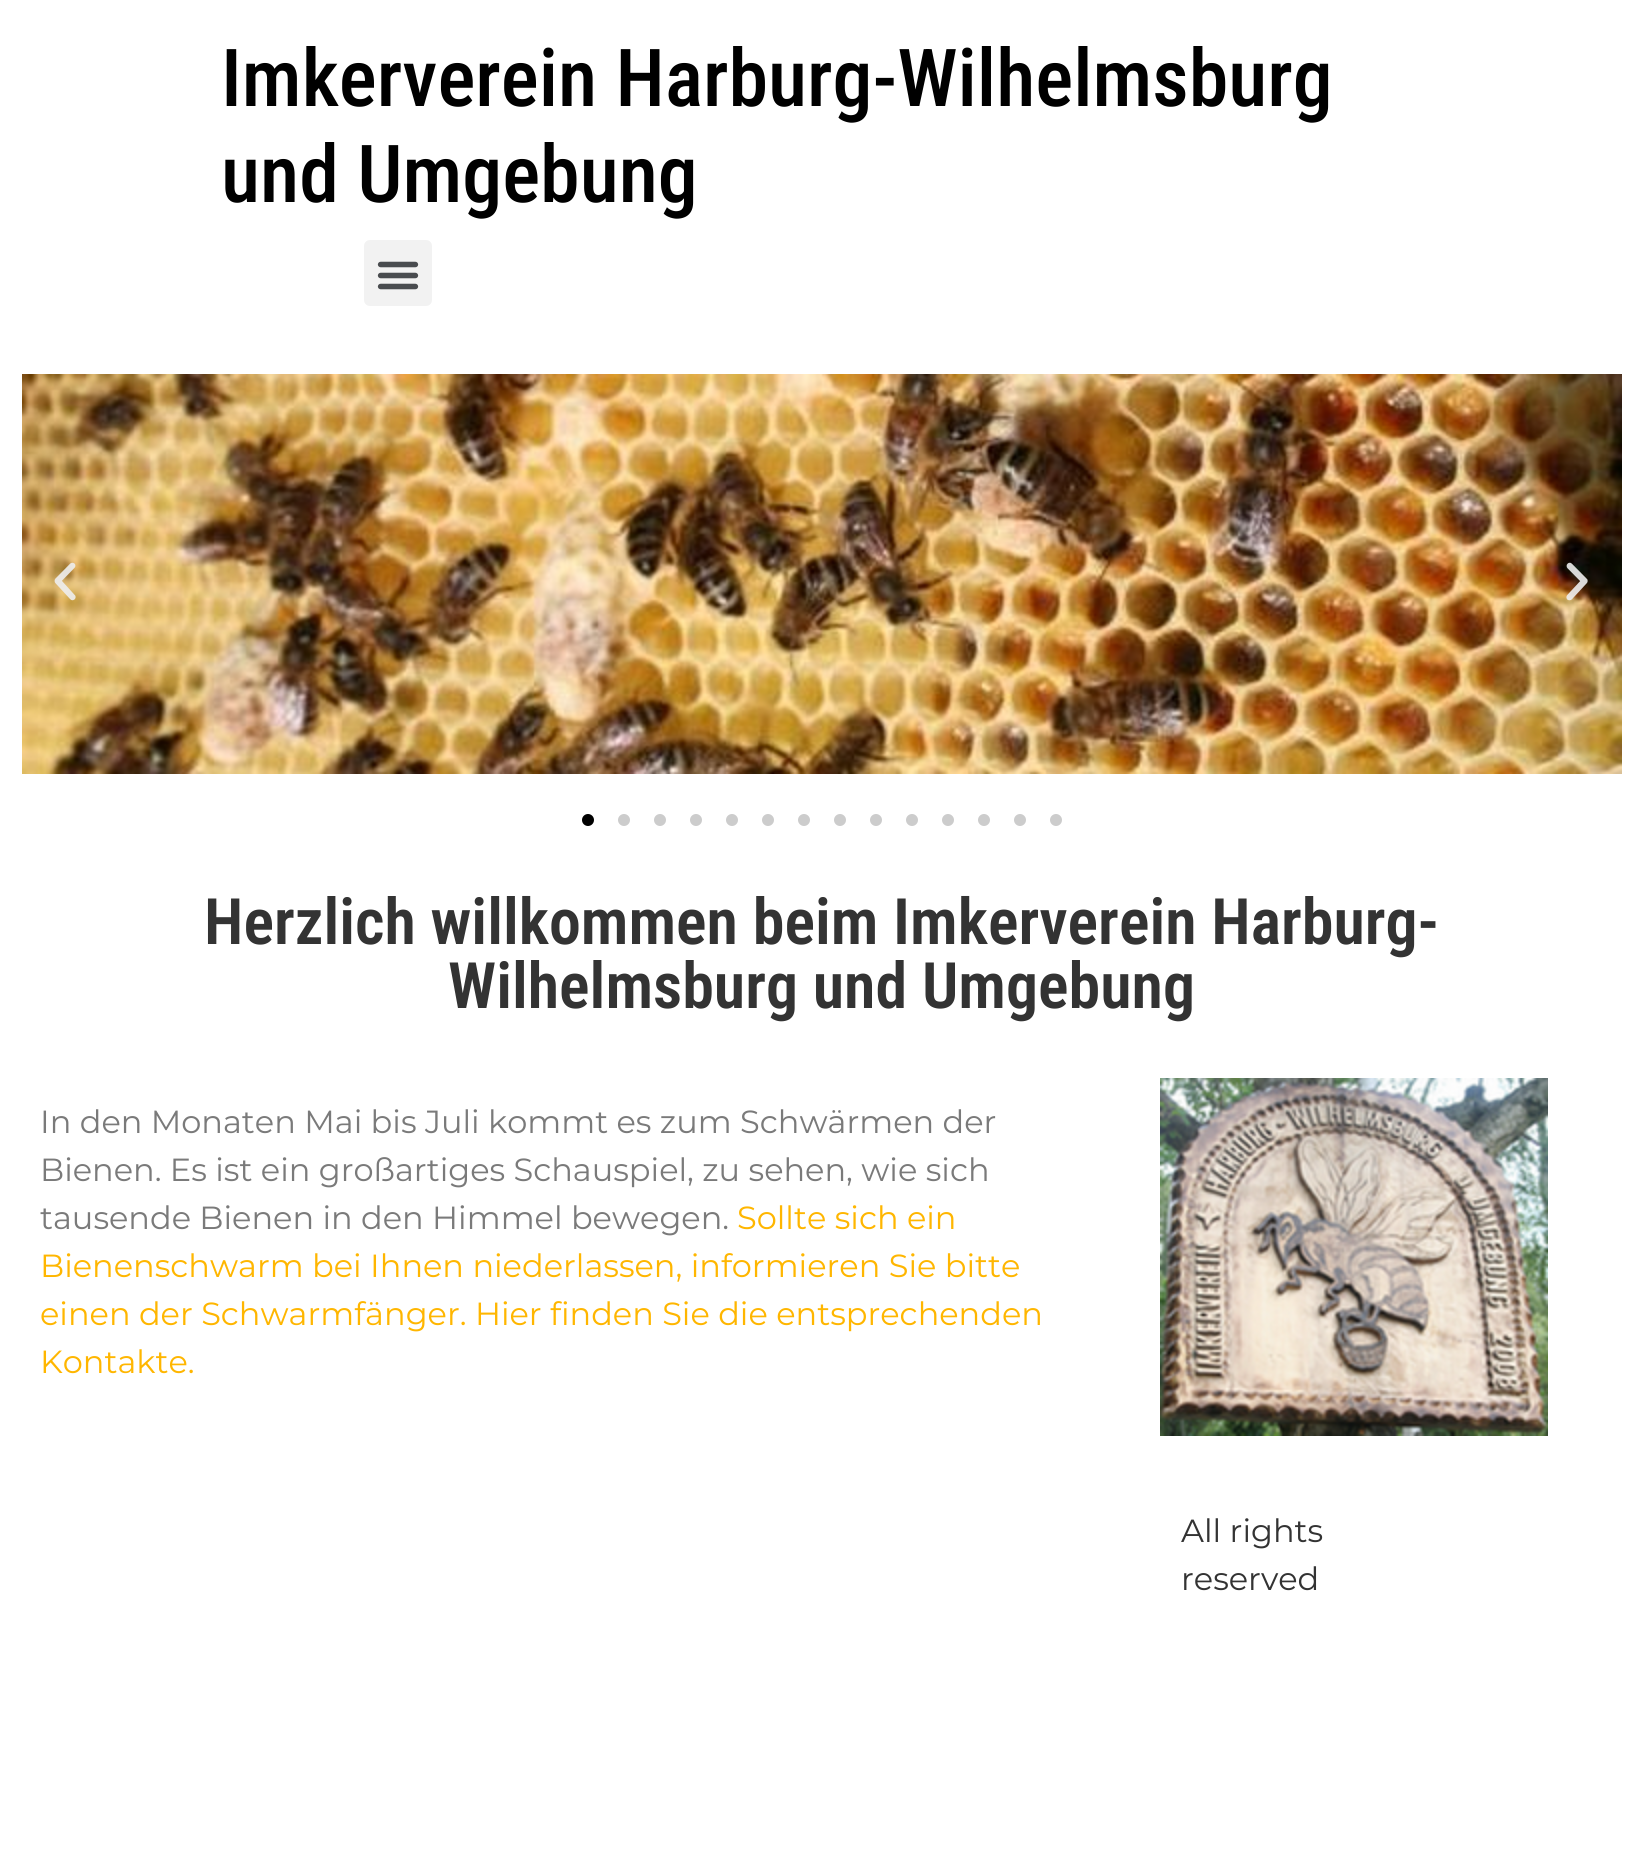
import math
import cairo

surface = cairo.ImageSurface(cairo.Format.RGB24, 1642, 1850)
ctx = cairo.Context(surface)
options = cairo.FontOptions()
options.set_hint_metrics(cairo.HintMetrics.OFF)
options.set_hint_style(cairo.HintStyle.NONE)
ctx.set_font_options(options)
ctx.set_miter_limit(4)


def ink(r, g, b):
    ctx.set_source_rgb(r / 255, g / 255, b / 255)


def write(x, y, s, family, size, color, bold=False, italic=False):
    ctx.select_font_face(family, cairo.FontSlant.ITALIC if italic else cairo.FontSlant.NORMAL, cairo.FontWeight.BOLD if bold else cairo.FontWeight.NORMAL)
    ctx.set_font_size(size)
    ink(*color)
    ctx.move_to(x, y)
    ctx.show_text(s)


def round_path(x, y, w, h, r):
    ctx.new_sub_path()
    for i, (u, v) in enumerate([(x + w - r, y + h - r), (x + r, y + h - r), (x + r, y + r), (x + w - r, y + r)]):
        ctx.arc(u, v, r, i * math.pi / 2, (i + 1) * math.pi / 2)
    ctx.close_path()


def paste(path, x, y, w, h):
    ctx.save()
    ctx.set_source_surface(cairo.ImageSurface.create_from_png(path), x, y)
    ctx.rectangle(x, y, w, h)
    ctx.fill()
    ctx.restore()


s1 = dict(family="Roboto Condensed Medium", size=80, color=(0, 0, 0))
s2 = dict(family="Roboto Condensed SemiBold", size=64, color=(51, 51, 51))
s3 = dict(family="Montserrat", size=32, color=(122, 122, 122))
s4 = dict(family="Montserrat", size=32, color=(255, 182, 0))
s5 = dict(family="Montserrat", size=32, color=(51, 51, 51))

ink(255, 255, 255)
ctx.paint()
write(221, 106, "Imkerverein Harburg-Wilhelmsburg", **s1)
write(221, 202, "und Umgebung", **s1)
ink(242, 242, 242)
round_path(364, 240, 68, 66, 6)
ctx.fill()
paste("pic1.png", 377, 261, 42, 29)
paste("pic2.png", 22, 374, 1600, 400)
paste("pic3.png", 54, 562, 22, 39)
paste("pic4.png", 1566, 562, 22, 39)
ink(0, 0, 0)
ctx.arc(588, 820, 6, 0, 2 * math.pi)
ctx.fill()
ink(204, 204, 204)
ctx.arc(624, 820, 6, 0, 2 * math.pi)
ctx.fill()
ctx.arc(660, 820, 6, 0, 2 * math.pi)
ctx.fill()
ctx.arc(696, 820, 6, 0, 2 * math.pi)
ctx.fill()
ctx.arc(732, 820, 6, 0, 2 * math.pi)
ctx.fill()
ctx.arc(768, 820, 6, 0, 2 * math.pi)
ctx.fill()
ctx.arc(804, 820, 6, 0, 2 * math.pi)
ctx.fill()
ctx.arc(840, 820, 6, 0, 2 * math.pi)
ctx.fill()
ctx.arc(876, 820, 6, 0, 2 * math.pi)
ctx.fill()
ctx.arc(912, 820, 6, 0, 2 * math.pi)
ctx.fill()
ctx.arc(948, 820, 6, 0, 2 * math.pi)
ctx.fill()
ctx.arc(984, 820, 6, 0, 2 * math.pi)
ctx.fill()
ctx.arc(1020, 820, 6, 0, 2 * math.pi)
ctx.fill()
ctx.arc(1056, 820, 6, 0, 2 * math.pi)
ctx.fill()
write(204, 944, "Herzlich willkommen beim Imkerverein Harburg-", **s2)
write(448, 1008, "Wilhelmsburg und Umgebung", **s2)
write(40, 1133, "In den Monaten Mai bis Juli kommt es zum Schwärmen der", **s3)
write(40, 1181, "Bienen. Es ist ein großartiges Schauspiel, zu sehen, wie sich", **s3)
write(40, 1229, "tausende Bienen in den Himmel bewegen.", **s3)
write(737, 1229, "Sollte sich ein", **s4)
write(40, 1277, "Bienenschwarm bei Ihnen niederlassen, informieren Sie bitte", **s4)
write(40, 1325, "einen der Schwarmfänger. Hier finden Sie die entsprechenden", **s4)
write(40, 1373, "Kontakte.", **s4)
paste("pic5.png", 1160, 1078, 388, 358)
write(1181, 1542, "All rights", **s5)
write(1181, 1590, "reserved", **s5)
surface.write_to_png("screenshot.png")
